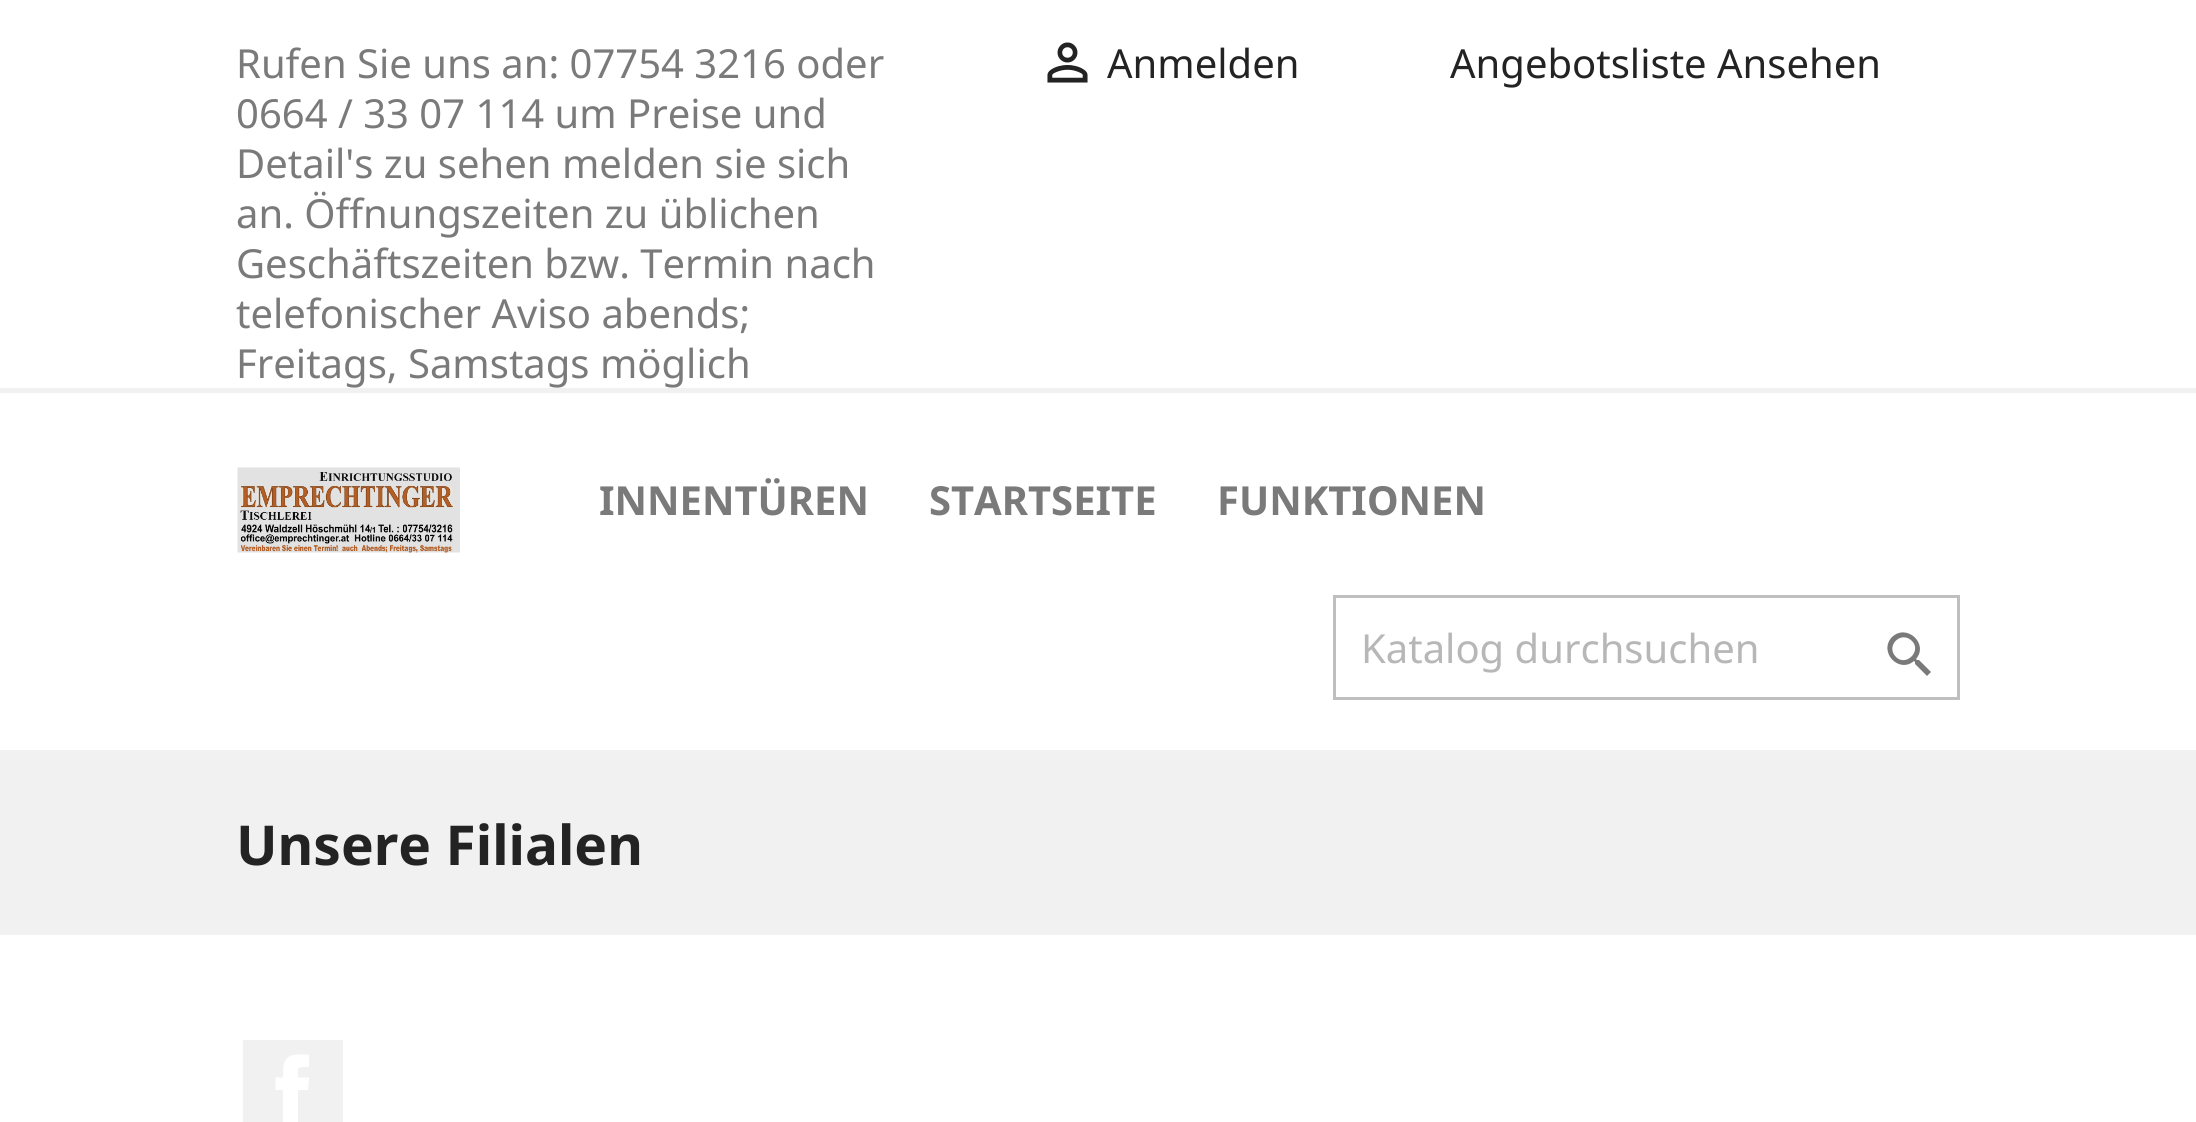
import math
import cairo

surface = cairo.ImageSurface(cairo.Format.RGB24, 2196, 1122)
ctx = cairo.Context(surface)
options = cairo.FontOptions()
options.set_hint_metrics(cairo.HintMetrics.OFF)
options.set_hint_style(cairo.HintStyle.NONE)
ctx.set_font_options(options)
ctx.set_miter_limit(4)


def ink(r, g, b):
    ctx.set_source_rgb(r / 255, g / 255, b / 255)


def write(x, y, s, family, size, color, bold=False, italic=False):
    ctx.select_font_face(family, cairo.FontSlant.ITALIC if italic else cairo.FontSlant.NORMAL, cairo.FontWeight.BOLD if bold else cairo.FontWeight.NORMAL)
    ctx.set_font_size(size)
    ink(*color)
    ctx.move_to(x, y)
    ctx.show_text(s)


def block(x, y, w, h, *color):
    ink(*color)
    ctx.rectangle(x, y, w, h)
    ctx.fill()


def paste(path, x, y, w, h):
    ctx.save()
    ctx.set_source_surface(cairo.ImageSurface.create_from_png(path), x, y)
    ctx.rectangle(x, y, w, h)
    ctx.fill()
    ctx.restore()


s1 = dict(family="Noto Sans", size=40, color=(122, 122, 122))
s2 = dict(family="Noto Sans", size=40, color=(35, 35, 35))
s3 = dict(family="Noto Sans", size=40, color=(122, 122, 122), bold=True)
s4 = dict(family="Noto Sans", size=40, color=(183, 183, 183))
s5 = dict(family="Noto Sans", size=55, color=(35, 35, 35), bold=True)

ink(255, 255, 255)
ctx.paint()
block(0, 388, 2196, 5, 241, 241, 241)
write(236, 78, "Rufen Sie uns an: 07754 3216 oder", **s1)
write(236, 128, "0664 / 33 07 114 um Preise und", **s1)
write(236, 178, "Detail's zu sehen melden sie sich", **s1)
write(236, 228, "an. Öffnungszeiten zu üblichen", **s1)
write(236, 278, "Geschäftszeiten bzw. Termin nach", **s1)
write(236, 328, "telefonischer Aviso abends;", **s1)
write(236, 378, "Freitags, Samstags möglich", **s1)
paste("pic1.png", 1047, 42, 41, 41)
write(1107, 78, "Anmelden", **s2)
write(1450, 78, "Angebotsliste Ansehen", **s2)
paste("pic2.png", 237, 467, 223, 86)
write(599, 515, "INNENTÜREN", **s3)
write(929, 515, "STARTSEITE", **s3)
write(1217, 515, "FUNKTIONEN", **s3)
ctx.rectangle(1334.5, 596.5, 624, 102)
ink(191, 191, 191)
ctx.set_line_width(3)
ctx.stroke()
write(1361, 663, "Katalog durchsuchen", **s4)
ink(122, 122, 122)
ctx.new_path()
ctx.move_to(1896, 657)
ctx.curve_to(1906, 667, 1922, 651, 1912, 641)
ctx.curve_to(1901, 630, 1885, 646, 1896, 657)
ctx.close_path()
ctx.move_to(1919, 660)
ctx.line_to(1931, 672)
ctx.line_to(1927, 676)
ctx.line_to(1915, 664)
ctx.line_to(1915, 662)
ctx.line_to(1914, 661)
ctx.curve_to(1899, 674, 1878, 652, 1892, 637)
ctx.curve_to(1907, 623, 1929, 644, 1916, 659)
ctx.line_to(1917, 660)
ctx.close_path()
ctx.fill()
block(0, 750, 2196, 185, 241, 241, 241)
write(236, 865, "Unsere Filialen", **s5)
block(243, 1040, 100, 82, 241, 241, 241)
paste("pic3.png", 275, 1054, 34, 68)
surface.write_to_png("screenshot.png")
